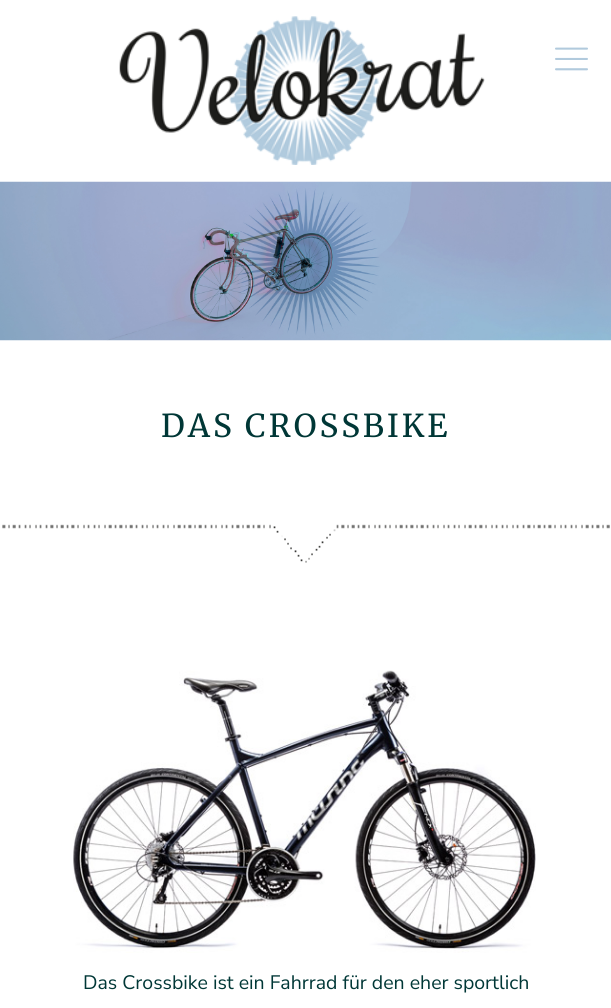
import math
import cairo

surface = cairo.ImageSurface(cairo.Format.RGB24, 611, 1008)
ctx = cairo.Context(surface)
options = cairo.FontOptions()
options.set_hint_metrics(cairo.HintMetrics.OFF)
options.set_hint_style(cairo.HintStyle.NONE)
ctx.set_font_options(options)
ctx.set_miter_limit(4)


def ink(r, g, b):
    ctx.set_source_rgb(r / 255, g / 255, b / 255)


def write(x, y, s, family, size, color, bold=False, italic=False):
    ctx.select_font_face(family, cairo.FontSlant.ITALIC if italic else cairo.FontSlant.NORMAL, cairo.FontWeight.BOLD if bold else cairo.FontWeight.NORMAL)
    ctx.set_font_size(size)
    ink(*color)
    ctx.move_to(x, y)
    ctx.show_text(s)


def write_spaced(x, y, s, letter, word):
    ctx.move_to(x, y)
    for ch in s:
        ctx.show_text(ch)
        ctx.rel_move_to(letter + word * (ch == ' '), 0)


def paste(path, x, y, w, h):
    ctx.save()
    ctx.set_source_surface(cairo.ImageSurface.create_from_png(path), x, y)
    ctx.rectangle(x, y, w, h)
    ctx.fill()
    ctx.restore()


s1 = dict(family="Nunito Sans", size=19.5, color=(0, 55, 54))

ink(255, 255, 255)
ctx.paint()
paste("pic1.png", 119, 16, 366, 149)
paste("pic2.png", 555, 47, 33, 24)
paste("pic3.png", 0, 181, 611, 160)
ctx.select_font_face("Merriweather")
ctx.set_font_size(31.5)
ink(0, 55, 54)
write_spaced(161, 437, "DAS CROSSBIKE", 3, 0)
paste("pic4.png", 2, 524, 608, 39)
paste("pic5.png", 73, 670, 463, 283)
write(83, 989, "Das Crossbike ist ein Fahrrad für den eher sportlich", **s1)
surface.write_to_png("screenshot.png")
